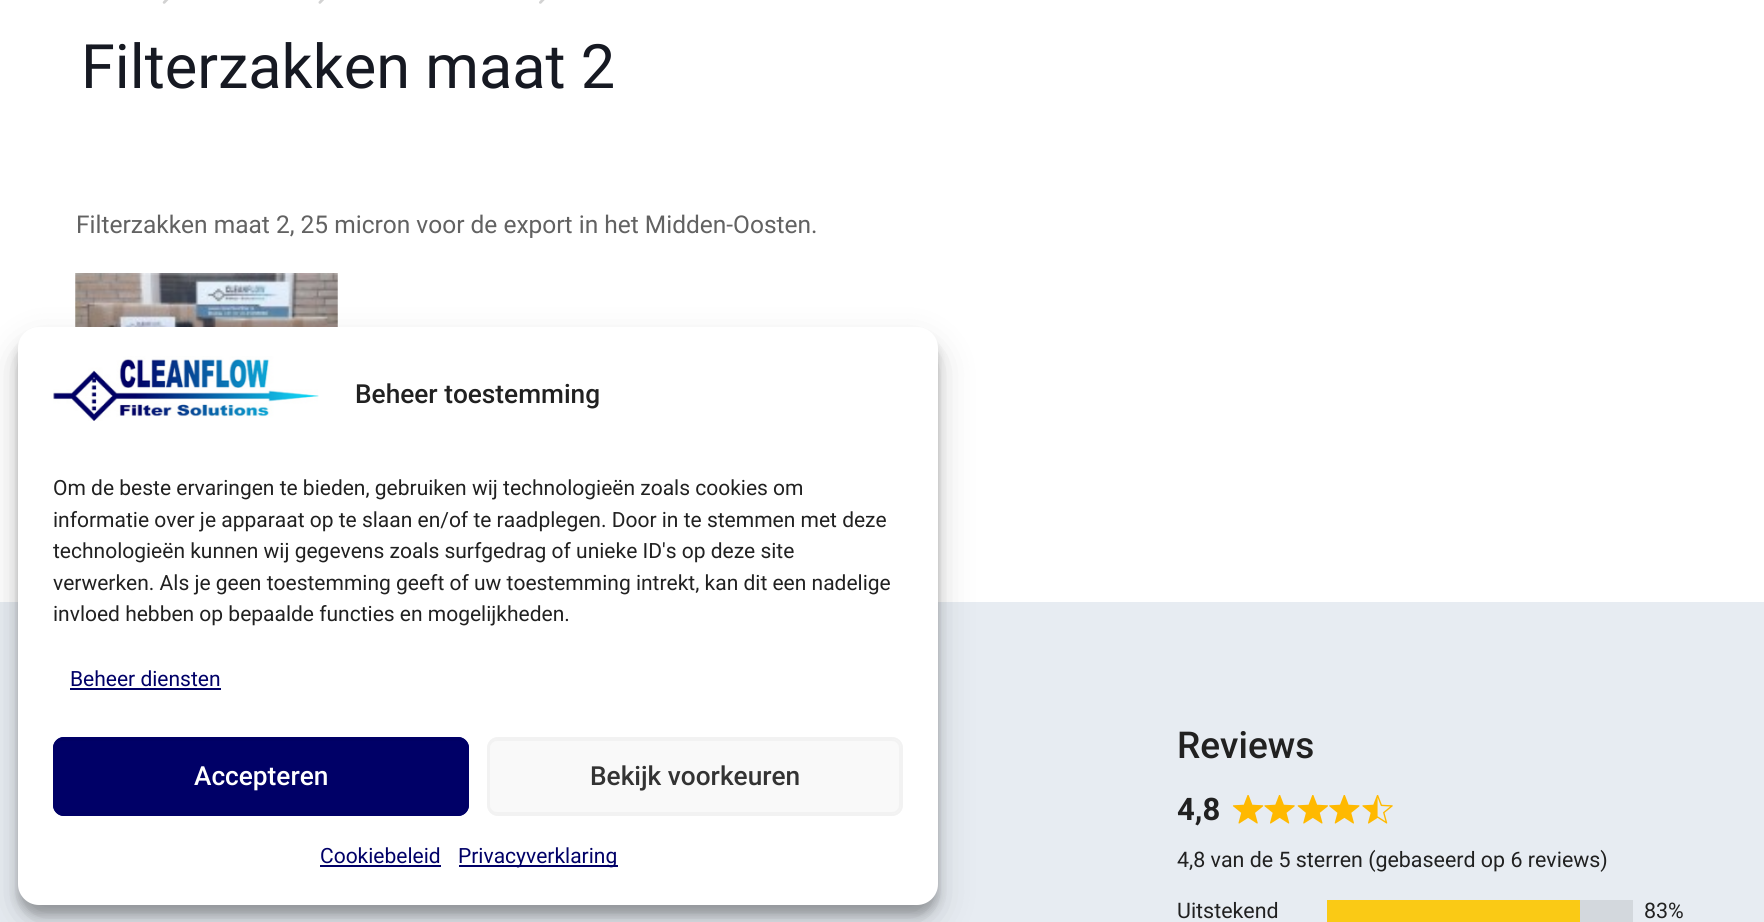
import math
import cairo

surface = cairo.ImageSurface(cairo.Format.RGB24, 1764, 922)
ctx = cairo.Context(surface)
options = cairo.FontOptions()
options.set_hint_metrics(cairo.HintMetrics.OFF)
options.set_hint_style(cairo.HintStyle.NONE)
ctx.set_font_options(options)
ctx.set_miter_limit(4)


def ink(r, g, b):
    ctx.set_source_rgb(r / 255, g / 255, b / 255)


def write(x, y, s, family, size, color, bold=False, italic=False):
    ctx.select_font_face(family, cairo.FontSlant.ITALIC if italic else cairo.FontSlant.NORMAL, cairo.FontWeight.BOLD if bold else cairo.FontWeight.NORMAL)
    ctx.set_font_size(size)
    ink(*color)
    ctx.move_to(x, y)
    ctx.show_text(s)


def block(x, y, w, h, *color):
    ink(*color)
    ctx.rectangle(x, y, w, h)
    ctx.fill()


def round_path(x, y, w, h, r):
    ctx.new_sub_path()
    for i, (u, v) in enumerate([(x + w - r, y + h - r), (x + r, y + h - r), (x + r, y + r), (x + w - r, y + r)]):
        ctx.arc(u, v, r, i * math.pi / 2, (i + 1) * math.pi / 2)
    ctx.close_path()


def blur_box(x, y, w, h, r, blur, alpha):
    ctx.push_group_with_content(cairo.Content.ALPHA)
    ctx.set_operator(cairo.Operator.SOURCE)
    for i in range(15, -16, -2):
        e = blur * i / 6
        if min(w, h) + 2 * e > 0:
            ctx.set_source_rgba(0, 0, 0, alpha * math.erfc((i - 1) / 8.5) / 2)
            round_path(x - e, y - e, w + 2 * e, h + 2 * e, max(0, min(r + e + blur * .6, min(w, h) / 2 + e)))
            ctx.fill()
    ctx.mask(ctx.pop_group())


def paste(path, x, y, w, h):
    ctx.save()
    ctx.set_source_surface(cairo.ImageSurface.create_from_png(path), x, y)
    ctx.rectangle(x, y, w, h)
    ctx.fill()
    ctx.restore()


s1 = dict(family="Roboto", size=61.25, color=(22, 25, 34))
s2 = dict(family="Roboto", size=24.5, color=(98, 98, 98))
s3 = dict(family="Roboto Medium", size=37, color=(33, 33, 33))
s4 = dict(family="Roboto", size=31, color=(33, 33, 33), bold=True)
s5 = dict(family="Roboto", size=21.4, color=(33, 33, 33))
s6 = dict(family="Roboto Medium", size=26.25, color=(33, 33, 33))
s7 = dict(family="Roboto", size=21, color=(33, 33, 33))
s8 = dict(family="Roboto", size=21, color=(0, 0, 103))
s9 = dict(family="Roboto Medium", size=26.25, color=(255, 255, 255))
s10 = dict(family="Roboto Medium", size=26.25, color=(51, 51, 51))

ink(255, 255, 255)
ctx.paint()
paste("pic1.png", 162, 0, 7, 4)
paste("pic2.png", 318, 0, 6, 4)
paste("pic3.png", 539, 0, 6, 4)
write(81, 88, "Filterzakken maat 2", **s1)
write(76, 233, "Filterzakken maat 2, 25 micron voor de export in het Midden-Oosten.", **s2)
paste("pic4.png", 75, 273, 263, 54)
block(0, 602, 1764, 320, 231, 236, 242)
write(1177, 758, "Reviews", **s3)
write(1177, 820, "4,8", **s4)
paste("pic5.png", 1232, 795, 32, 29)
paste("pic6.png", 1264, 795, 31, 29)
paste("pic7.png", 1297, 795, 31, 29)
paste("pic8.png", 1329, 795, 31, 29)
paste("pic9.png", 1362, 795, 31, 29)
write(1177, 867, "4,8 van de 5 sterren (gebaseerd op 6 reviews)", **s5)
write(1177, 918, "Uitstekend", **s5)
block(1327, 900, 253, 22, 250, 202, 21)
block(1580, 900, 53, 22, 211, 216, 221)
write(1644, 918, "83%", **s5)
ink(0, 0, 0)
blur_box(18, 338, 920, 577, 21, 5, 0.23)
blur_box(18, 345, 920, 577, 21, 17.5, 0.19)
ink(255, 255, 255)
round_path(18, 327, 920, 578, 21)
ctx.fill()
paste("pic10.png", 53, 356, 266, 65)
write(355, 403, "Beheer toestemming", **s6)
write(53, 495, "Om de beste ervaringen te bieden, gebruiken wij technologieën zoals cookies om", **s7)
write(53, 527, "informatie over je apparaat op te slaan en/of te raadplegen. Door in te stemmen met deze", **s7)
write(53, 558, "technologieën kunnen wij gegevens zoals surfgedrag of unieke ID's op deze site", **s7)
write(53, 590, "verwerken. Als je geen toestemming geeft of uw toestemming intrekt, kan dit een nadelige", **s7)
write(53, 621, "invloed hebben op bepaalde functies en mogelijkheden.", **s7)
write(70, 686, "Beheer diensten", **s8)
block(70, 688, 151, 2, 0, 0, 103)
round_path(53, 737, 416, 79, 11)
ctx.fill()
round_path(55, 740, 411, 73, 8)
ink(0, 0, 100)
ctx.stroke()
round_path(54, 738, 414, 77, 10)
ink(0, 0, 103)
ctx.stroke()
write(194, 785, "Accepteren", **s9)
ink(249, 249, 249)
round_path(487, 737, 416, 79, 11)
ctx.fill()
round_path(489, 740, 411, 73, 8)
ink(242, 242, 242)
ctx.stroke()
round_path(488, 738, 414, 77, 10)
ctx.stroke()
write(590, 785, "Bekijk voorkeuren", **s10)
write(320, 863, "Cookiebeleid", **s8)
block(320, 865, 121, 2, 0, 0, 103)
block(459, 865, 159, 2, 0, 0, 103)
write(458, 863, "Privacyverklaring", **s8)
surface.write_to_png("screenshot.png")
